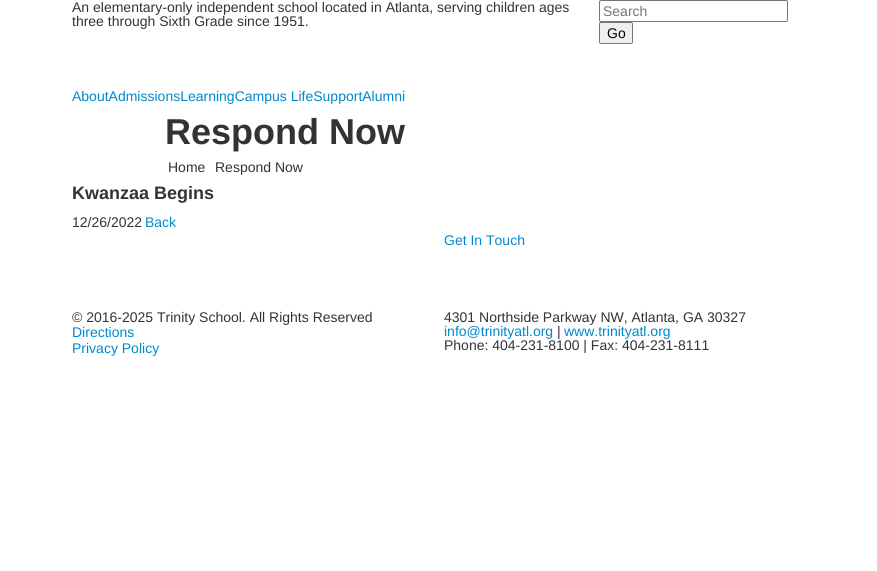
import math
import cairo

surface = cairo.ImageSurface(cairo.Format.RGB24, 877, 571)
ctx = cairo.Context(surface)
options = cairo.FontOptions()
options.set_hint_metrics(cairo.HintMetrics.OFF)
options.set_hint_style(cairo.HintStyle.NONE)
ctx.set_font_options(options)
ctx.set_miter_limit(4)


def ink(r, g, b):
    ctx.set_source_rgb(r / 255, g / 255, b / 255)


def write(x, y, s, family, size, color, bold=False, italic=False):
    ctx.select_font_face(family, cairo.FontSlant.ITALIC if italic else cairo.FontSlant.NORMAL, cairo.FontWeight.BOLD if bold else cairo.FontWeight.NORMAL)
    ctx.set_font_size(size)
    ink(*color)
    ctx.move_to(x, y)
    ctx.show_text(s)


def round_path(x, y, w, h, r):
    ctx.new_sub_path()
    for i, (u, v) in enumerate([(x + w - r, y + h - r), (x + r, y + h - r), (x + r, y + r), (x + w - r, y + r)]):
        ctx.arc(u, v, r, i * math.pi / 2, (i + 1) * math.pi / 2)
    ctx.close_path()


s1 = dict(family="Liberation Sans", size=14, color=(51, 51, 51))
s2 = dict(family="Liberation Sans", size=14, color=(117, 117, 117))
s3 = dict(family="Liberation Sans", size=14, color=(0, 0, 0))
s4 = dict(family="Liberation Sans", size=14, color=(0, 136, 204))
s5 = dict(family="Liberation Sans", size=36, color=(51, 51, 51), bold=True)
s6 = dict(family="Liberation Sans", size=18, color=(51, 51, 51), bold=True)

ink(255, 255, 255)
ctx.paint()
write(72, 12, "An elementary-only independent school located in Atlanta, serving children ages", **s1)
write(72, 26, "three through Sixth Grade since 1951.", **s1)
round_path(599.5, 0.5, 188, 21, 1.5)
ink(118, 118, 118)
ctx.set_line_width(1)
ctx.stroke()
write(603, 16, "Search", **s2)
ink(239, 239, 239)
round_path(599.5, 22.5, 33, 21, 1.5)
ctx.fill_preserve()
ink(118, 118, 118)
ctx.stroke()
write(607, 38, "Go", **s3)
write(72, 101, "AboutAdmissionsLearningCampus LifeSupportAlumni", **s4)
write(165, 144, "Respond Now", **s5)
write(168, 172, "Home", **s1)
write(215, 172, "Respond Now", **s1)
write(72, 199, "Kwanzaa Begins", **s6)
write(72, 227, "12/26/2022", **s1)
write(145, 227, "Back", **s4)
write(444, 245, "Get In Touch", **s4)
write(72, 322, "© 2016-2025 Trinity School. All Rights Reserved", **s1)
write(72, 337, "Directions", **s4)
write(72, 353, "Privacy Policy", **s4)
write(444, 322, "4301 Northside Parkway NW, Atlanta, GA 30327", **s1)
write(444, 336, "info@trinityatl.org", **s4)
write(557, 336, "|", **s1)
write(564, 336, "www.trinityatl.org", **s4)
write(444, 350, "Phone: 404-231-8100 | Fax: 404-231-8111", **s1)
surface.write_to_png("screenshot.png")
